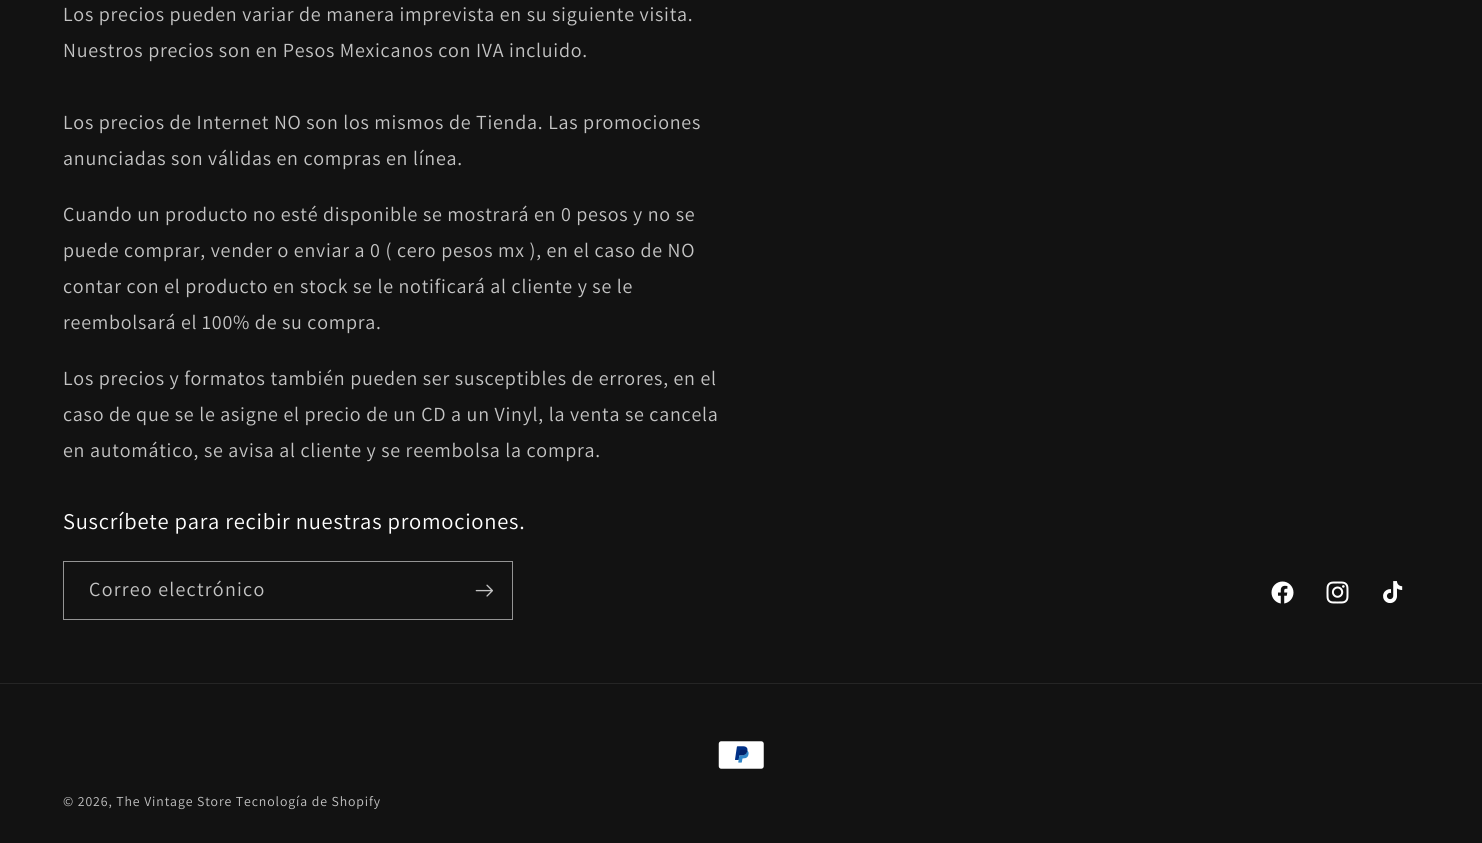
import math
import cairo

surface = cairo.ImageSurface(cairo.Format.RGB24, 1482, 843)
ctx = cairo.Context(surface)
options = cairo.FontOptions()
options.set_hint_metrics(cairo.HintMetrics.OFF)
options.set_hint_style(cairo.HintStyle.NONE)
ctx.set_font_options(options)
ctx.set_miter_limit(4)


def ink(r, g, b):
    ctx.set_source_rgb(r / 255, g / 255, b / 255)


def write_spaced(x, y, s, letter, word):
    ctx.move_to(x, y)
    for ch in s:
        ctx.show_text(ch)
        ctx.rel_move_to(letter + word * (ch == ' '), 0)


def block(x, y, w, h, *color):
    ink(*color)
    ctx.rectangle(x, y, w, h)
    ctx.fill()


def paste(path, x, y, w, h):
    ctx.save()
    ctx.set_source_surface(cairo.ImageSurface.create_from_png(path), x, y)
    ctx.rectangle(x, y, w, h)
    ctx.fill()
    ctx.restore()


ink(18, 18, 18)
ctx.paint()
ctx.select_font_face("Assistant")
ctx.set_font_size(20)
ink(196, 196, 196)
write_spaced(63, 21, "Los precios pueden variar de manera imprevista en su siguiente visita.", 0.75, 0)
write_spaced(63, 57, "Nuestros precios son en Pesos Mexicanos con IVA incluido.", 0.75, 0)
write_spaced(63, 129, "Los precios de Internet NO son los mismos de Tienda. Las promociones", 0.75, 0)
write_spaced(63, 165, "anunciadas son válidas en compras en línea.", 0.75, 0)
write_spaced(63, 221, "Cuando un producto no esté disponible se mostrará en 0 pesos y no se", 0.75, 0)
write_spaced(63, 257, "puede comprar, vender o enviar a 0 ( cero pesos mx ), en el caso de NO", 0.75, 0)
write_spaced(63, 293, "contar con el producto en stock se le notificará al cliente y se le", 0.75, 0)
write_spaced(63, 329, "reembolsará el 100% de su compra.", 0.75, 0)
write_spaced(63, 385, "Los precios y formatos también pueden ser susceptibles de errores, en el", 0.75, 0)
write_spaced(63, 421, "caso de que se le asigne el precio de un CD a un Vinyl, la venta se cancela", 0.75, 0)
write_spaced(63, 457, "en automático, se avisa al cliente y se reembolsa la compra.", 0.75, 0)
ctx.set_font_size(22.5)
ink(255, 255, 255)
write_spaced(63, 529, "Suscríbete para recibir nuestras promociones.", 0.75, 0)
ctx.rectangle(63.5, 561.5, 449, 58)
ink(148, 148, 148)
ctx.set_line_width(1)
ctx.stroke()
ctx.set_font_size(20)
ink(196, 196, 196)
write_spaced(89, 596, "Correo electrónico", 1.25, 0)
paste("pic1.png", 475, 584, 18, 13)
paste("pic2.png", 1271, 581, 23, 23)
paste("pic3.png", 1326, 581, 23, 23)
paste("pic4.png", 1383, 581, 20, 23)
block(0, 683, 1482, 1, 37, 37, 37)
paste("pic5.png", 718, 741, 46, 28)
ctx.set_font_size(13.75)
ink(196, 196, 196)
write_spaced(63, 806, "© 2026, The Vintage Store Tecnología de Shopify", 0.9, 0)
surface.write_to_png("screenshot.png")
